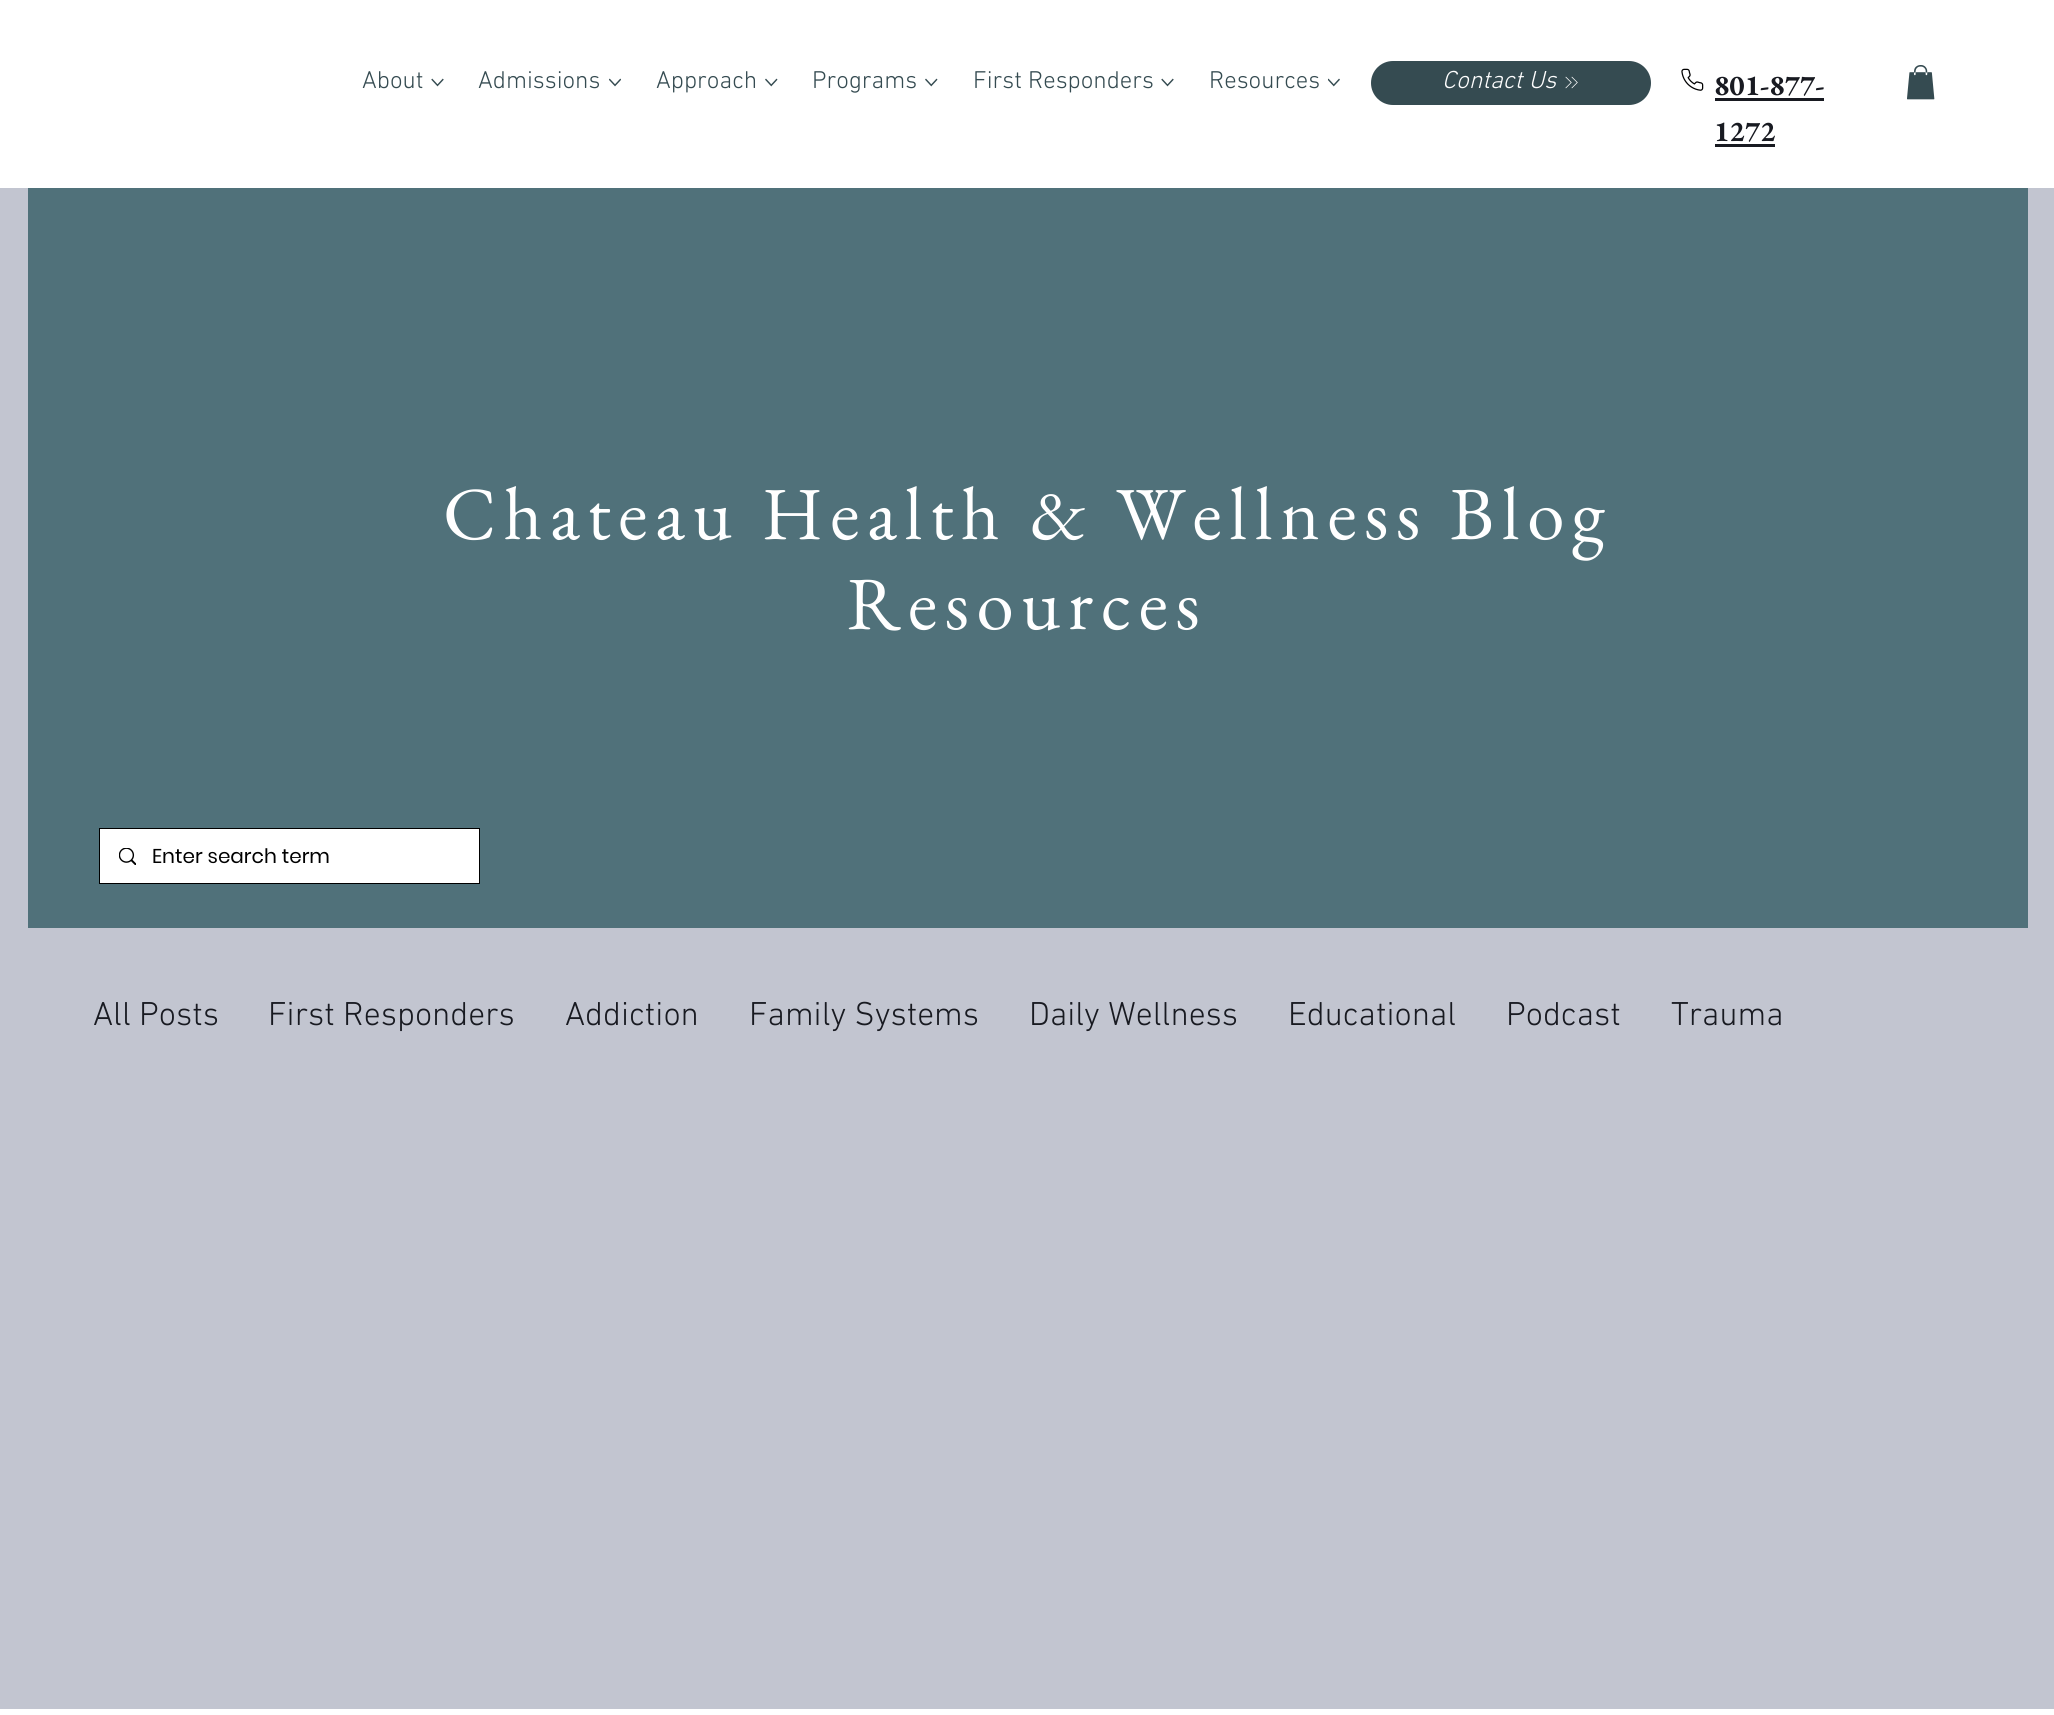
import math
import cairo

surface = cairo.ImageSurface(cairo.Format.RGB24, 2054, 1715)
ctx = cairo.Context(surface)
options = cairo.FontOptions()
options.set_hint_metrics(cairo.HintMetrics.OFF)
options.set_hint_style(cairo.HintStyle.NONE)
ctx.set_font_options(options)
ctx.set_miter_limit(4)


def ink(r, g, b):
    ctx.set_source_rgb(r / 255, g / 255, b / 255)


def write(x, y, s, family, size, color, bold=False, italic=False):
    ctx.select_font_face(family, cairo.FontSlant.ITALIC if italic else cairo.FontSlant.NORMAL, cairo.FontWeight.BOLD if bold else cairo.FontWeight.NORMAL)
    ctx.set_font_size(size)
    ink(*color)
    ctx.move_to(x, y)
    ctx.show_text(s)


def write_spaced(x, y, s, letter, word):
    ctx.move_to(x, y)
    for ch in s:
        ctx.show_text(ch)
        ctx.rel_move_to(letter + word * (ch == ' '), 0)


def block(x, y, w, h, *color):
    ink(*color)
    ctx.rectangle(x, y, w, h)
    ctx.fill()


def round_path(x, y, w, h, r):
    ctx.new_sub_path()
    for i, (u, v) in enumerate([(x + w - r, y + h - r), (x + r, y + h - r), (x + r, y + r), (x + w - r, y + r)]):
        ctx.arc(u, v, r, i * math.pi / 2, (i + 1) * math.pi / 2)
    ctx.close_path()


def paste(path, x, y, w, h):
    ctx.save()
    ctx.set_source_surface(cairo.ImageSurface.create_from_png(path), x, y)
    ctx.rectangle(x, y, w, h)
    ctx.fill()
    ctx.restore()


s1 = dict(family="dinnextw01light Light", size=24.75, color=(53, 75, 81))
s2 = dict(family="dinnextw01light Light", size=25, color=(255, 255, 255), italic=True)
s3 = dict(family="EB Garamond", size=29, color=(24, 26, 33), bold=True)
s4 = dict(family="Poppins", size=20, color=(0, 0, 0))
s5 = dict(family="dinnextw01light Light", size=33.75, color=(24, 26, 33))

ink(194, 197, 208)
ctx.paint()
block(0, 0, 2054, 188, 255, 255, 255)
write(362, 88, "About", **s1)
paste("pic1.png", 431, 78, 13, 9)
write(478, 88, "Admissions", **s1)
paste("pic2.png", 609, 78, 12, 9)
write(656, 88, "Approach", **s1)
paste("pic3.png", 765, 78, 13, 9)
write(812, 88, "Programs", **s1)
paste("pic3.png", 925, 78, 13, 9)
write(973, 88, "First Responders", **s1)
paste("pic1.png", 1161, 78, 13, 9)
write(1209, 88, "Resources", **s1)
paste("pic4.png", 1328, 78, 12, 9)
round_path(1369.5, 59.5, 283, 47, 23.5)
ctx.fill_preserve()
ink(255, 255, 255)
ctx.set_line_width(3)
ctx.stroke()
write(1442, 88, "Contact Us", **s2)
paste("pic5.png", 1565, 76, 13, 13)
paste("pic6.png", 1681, 68, 23, 23)
write(1714, 95, "801-877-", **s3)
block(1715, 98, 109, 3, 24, 26, 33)
write(1714, 141, "1272", **s3)
block(1715, 144, 60, 3, 24, 26, 33)
paste("pic7.png", 1907, 65, 28, 35)
block(28, 188, 2000, 740, 80, 113, 122)
ctx.select_font_face("EB Garamond")
ctx.set_font_size(75)
ink(255, 255, 255)
write_spaced(443, 539, "Chateau Health & Wellness Blog", 7.5, 0)
write_spaced(847, 629, "Resources", 7.5, 0)
ctx.rectangle(99.5, 828.5, 380, 55)
ink(0, 0, 0)
ctx.set_line_width(1)
ctx.stroke()
block(100, 829, 379, 54, 255, 255, 255)
paste("pic8.png", 119, 848, 17, 17)
write(152, 863, "Enter search term", **s4)
write(93, 1025, "All Posts", **s5)
write(268, 1025, "First Responders", **s5)
write(565, 1025, "Addiction", **s5)
write(749, 1025, "Family Systems", **s5)
write(1029, 1025, "Daily Wellness", **s5)
write(1288, 1025, "Educational", **s5)
write(1506, 1025, "Podcast", **s5)
write(1671, 1025, "Trauma", **s5)
block(0, 1709, 2054, 6, 255, 255, 255)
surface.write_to_png("screenshot.png")
